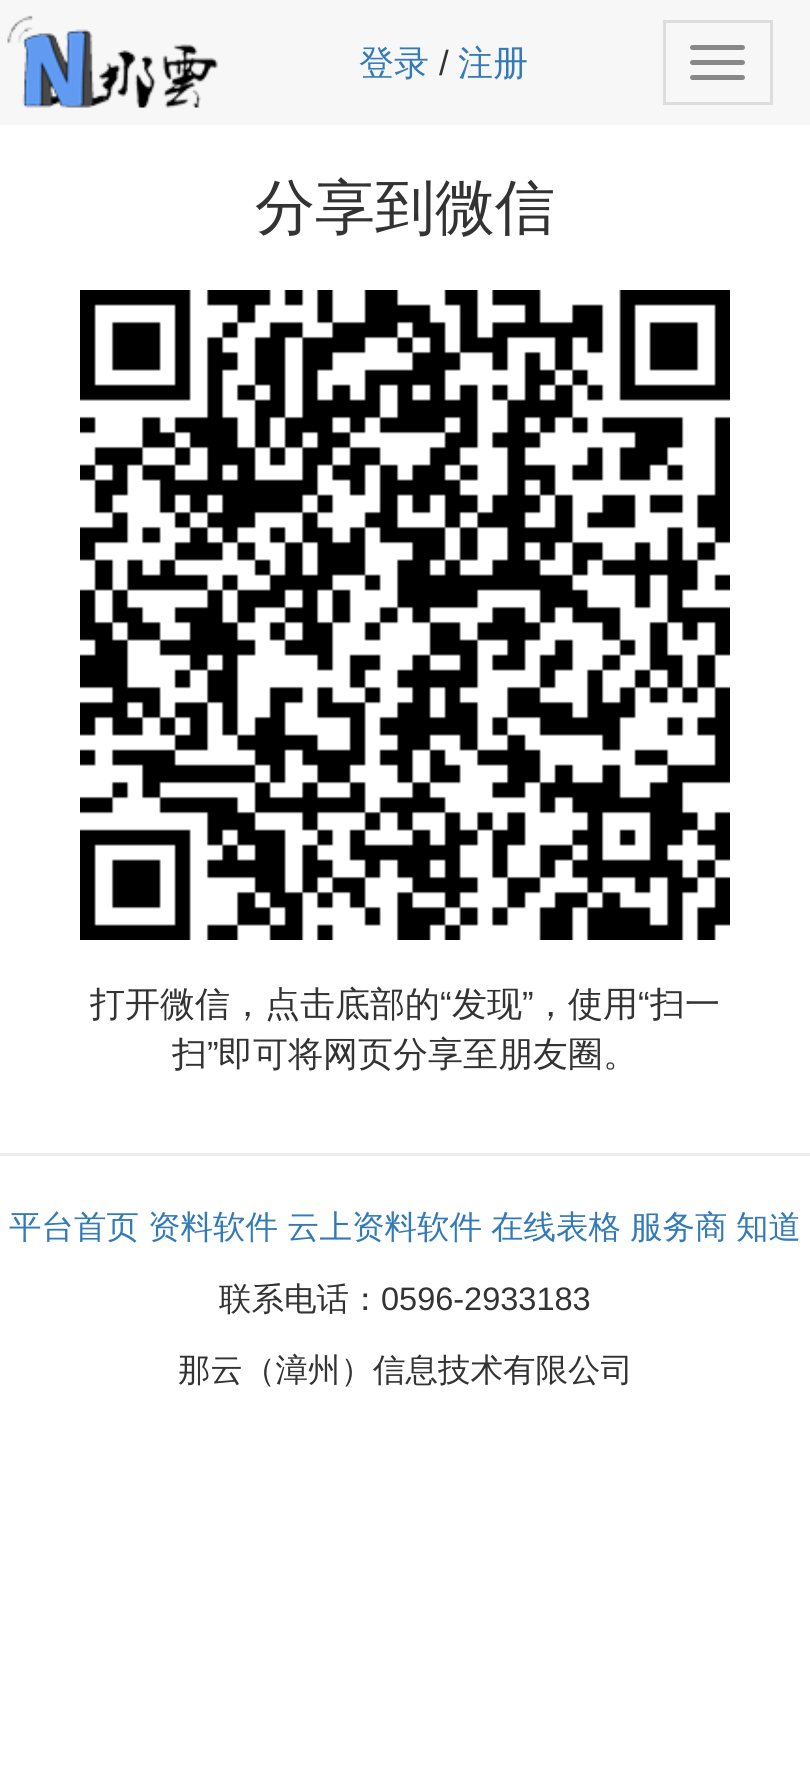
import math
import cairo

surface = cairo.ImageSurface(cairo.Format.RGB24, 810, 1782)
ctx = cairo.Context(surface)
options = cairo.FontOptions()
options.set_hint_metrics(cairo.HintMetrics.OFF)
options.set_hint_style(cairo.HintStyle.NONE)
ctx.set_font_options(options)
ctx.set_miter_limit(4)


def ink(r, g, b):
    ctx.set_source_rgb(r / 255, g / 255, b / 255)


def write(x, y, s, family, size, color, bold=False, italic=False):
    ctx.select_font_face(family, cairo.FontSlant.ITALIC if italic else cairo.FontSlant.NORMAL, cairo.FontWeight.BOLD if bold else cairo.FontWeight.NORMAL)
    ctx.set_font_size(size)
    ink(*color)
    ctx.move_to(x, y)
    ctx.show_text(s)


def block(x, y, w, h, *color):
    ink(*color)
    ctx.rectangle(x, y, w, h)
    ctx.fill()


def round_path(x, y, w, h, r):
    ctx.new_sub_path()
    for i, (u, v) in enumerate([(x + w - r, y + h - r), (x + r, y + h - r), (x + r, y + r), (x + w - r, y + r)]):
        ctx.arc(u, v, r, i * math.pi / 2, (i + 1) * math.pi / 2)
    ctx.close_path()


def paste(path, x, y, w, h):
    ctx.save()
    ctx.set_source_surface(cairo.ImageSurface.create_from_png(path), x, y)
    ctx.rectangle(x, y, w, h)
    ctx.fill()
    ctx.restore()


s1 = dict(family="WenQuanYi Zen Hei Medium", size=35, color=(51, 122, 183))
s2 = dict(family="Liberation Sans", size=35, color=(51, 51, 51))
s3 = dict(family="WenQuanYi Zen Hei Medium", size=60, color=(51, 51, 51))
s4 = dict(family="WenQuanYi Zen Hei Medium", size=35, color=(51, 51, 51))
s5 = dict(family="WenQuanYi Zen Hei Medium", size=32.5, color=(51, 122, 183))
s6 = dict(family="WenQuanYi Zen Hei Medium", size=32.5, color=(51, 51, 51))
s7 = dict(family="Liberation Sans", size=32.5, color=(51, 51, 51))

ink(255, 255, 255)
ctx.paint()
block(0, 0, 810, 125, 247, 247, 247)
paste("pic1.png", 7, 15, 211, 93)
write(359, 75, "登录", **s1)
write(439, 75, "/", **s2)
write(458, 75, "注册", **s1)
ctx.rectangle(664.5, 21.5, 107, 82)
ink(221, 221, 221)
ctx.set_line_width(3)
ctx.stroke()
ink(136, 136, 136)
round_path(690, 45, 55, 5, 2.5)
ctx.fill()
round_path(690, 60, 55, 5, 2.5)
ctx.fill()
round_path(690, 75, 55, 5, 2.5)
ctx.fill()
write(255, 228, "分享到微信", **s3)
paste("pic2.png", 80, 290, 650, 650)
write(90, 1016, "打开微信，点击底部的", **s4)
write(440, 1016, "“", **s2)
write(452, 1016, "发现", **s4)
write(522, 1016, "”", **s2)
write(533, 1016, "，使用", **s4)
write(638, 1016, "“", **s2)
write(650, 1016, "扫一", **s4)
write(172, 1066, "扫", **s4)
write(207, 1066, "”", **s2)
write(218, 1066, "即可将网页分享至朋友圈。", **s4)
block(0, 1153, 810, 3, 238, 238, 238)
write(9, 1238, "平台首页", **s5)
write(148, 1238, "资料软件", **s5)
write(287, 1238, "云上资料软件", **s5)
write(491, 1238, "在线表格", **s5)
write(630, 1238, "服务商", **s5)
write(736, 1238, "知道", **s5)
write(219, 1310, "联系电话：", **s6)
write(381, 1310, "0596-2933183", **s7)
write(178, 1381, "那云（漳州）信息技术有限公司", **s6)
surface.write_to_png("screenshot.png")
